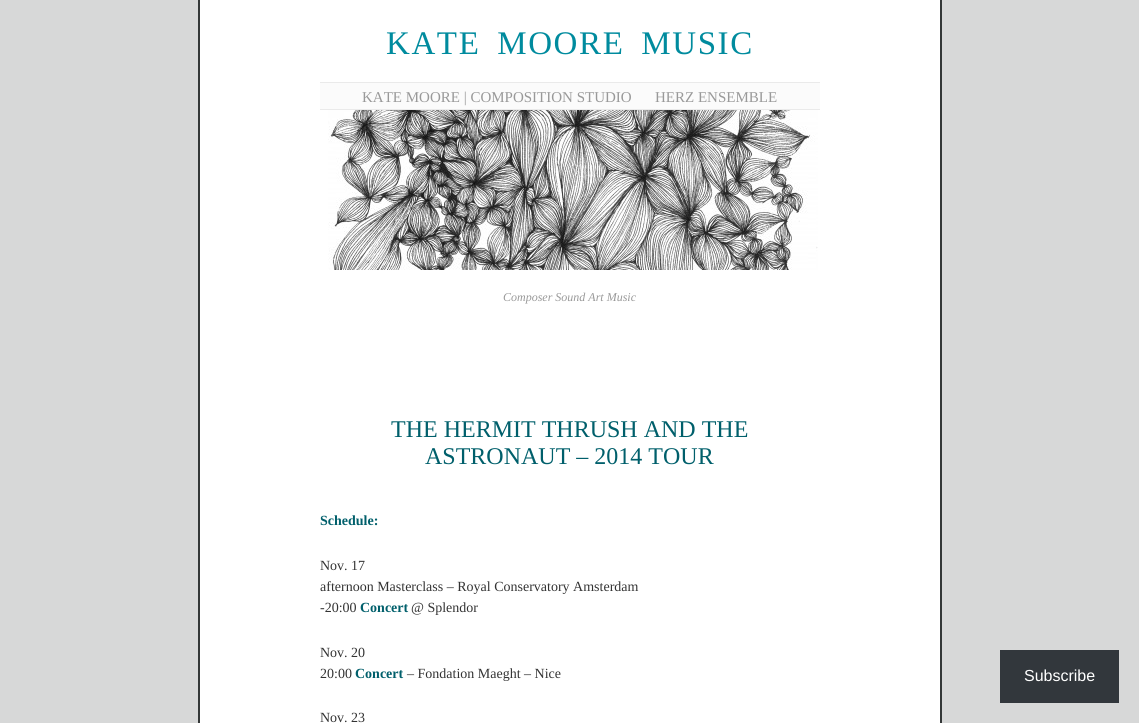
import math
import cairo

surface = cairo.ImageSurface(cairo.Format.RGB24, 1139, 723)
ctx = cairo.Context(surface)
options = cairo.FontOptions()
options.set_hint_metrics(cairo.HintMetrics.OFF)
options.set_hint_style(cairo.HintStyle.NONE)
ctx.set_font_options(options)
ctx.set_miter_limit(4)


def ink(r, g, b):
    ctx.set_source_rgb(r / 255, g / 255, b / 255)


def write(x, y, s, family, size, color, bold=False, italic=False):
    ctx.select_font_face(family, cairo.FontSlant.ITALIC if italic else cairo.FontSlant.NORMAL, cairo.FontWeight.BOLD if bold else cairo.FontWeight.NORMAL)
    ctx.set_font_size(size)
    ink(*color)
    ctx.move_to(x, y)
    ctx.show_text(s)


def write_spaced(x, y, s, letter, word):
    ctx.move_to(x, y)
    for ch in s:
        ctx.show_text(ch)
        ctx.rel_move_to(letter + word * (ch == ' '), 0)


def block(x, y, w, h, *color):
    ink(*color)
    ctx.rectangle(x, y, w, h)
    ctx.fill()


def paste(path, x, y, w, h):
    ctx.save()
    ctx.set_source_surface(cairo.ImageSurface.create_from_png(path), x, y)
    ctx.rectangle(x, y, w, h)
    ctx.fill()
    ctx.restore()


s1 = dict(family="Liberation Serif", size=15, color=(153, 153, 153))
s2 = dict(family="Liberation Serif", size=12, color=(153, 153, 153), italic=True)
s3 = dict(family="Liberation Serif", size=24, color=(0, 95, 107))
s4 = dict(family="Liberation Serif", size=14, color=(0, 95, 107), bold=True)
s5 = dict(family="Liberation Serif", size=14, color=(51, 51, 51))
s6 = dict(family="Liberation Sans", size=16, color=(255, 255, 255))

ink(215, 216, 216)
ctx.paint()
block(200, 0, 740, 723, 255, 255, 255)
block(940, 0, 2, 723, 52, 56, 56)
block(198, 0, 2, 723, 52, 56, 56)
ctx.select_font_face("Liberation Serif")
ctx.set_font_size(33)
ink(0, 139, 158)
write_spaced(386, 54, "KATE MOORE MUSIC", 1.6, 7)
block(320, 83, 500, 26, 251, 251, 251)
block(320, 82, 500, 1, 234, 234, 234)
block(320, 109, 500, 1, 234, 234, 234)
write(362, 102, "KATE MOORE | COMPOSITION STUDIO", **s1)
write(655, 102, "HERZ ENSEMBLE", **s1)
paste("pic1.png", 328, 110, 490, 160)
write(503, 301, "Composer Sound Art Music", **s2)
write(391, 437, "THE HERMIT THRUSH AND THE", **s3)
write(425, 464, "ASTRONAUT – 2014 TOUR", **s3)
write(320, 525, "Schedule:", **s4)
write(320, 570, "Nov. 17", **s5)
write(320, 591, "afternoon Masterclass – Royal Conservatory Amsterdam", **s5)
write(320, 612, "-20:00", **s5)
write(360, 612, "Concert", **s4)
write(411, 612, "@ Splendor", **s5)
write(320, 657, "Nov. 20", **s5)
write(320, 678, "20:00", **s5)
write(355, 678, "Concert", **s4)
write(407, 678, "– Fondation Maeght – Nice", **s5)
write(320, 722, "Nov. 23", **s5)
block(1000, 650, 119, 53, 50, 55, 60)
write(1024, 681, "Subscribe", **s6)
surface.write_to_png("screenshot.png")
